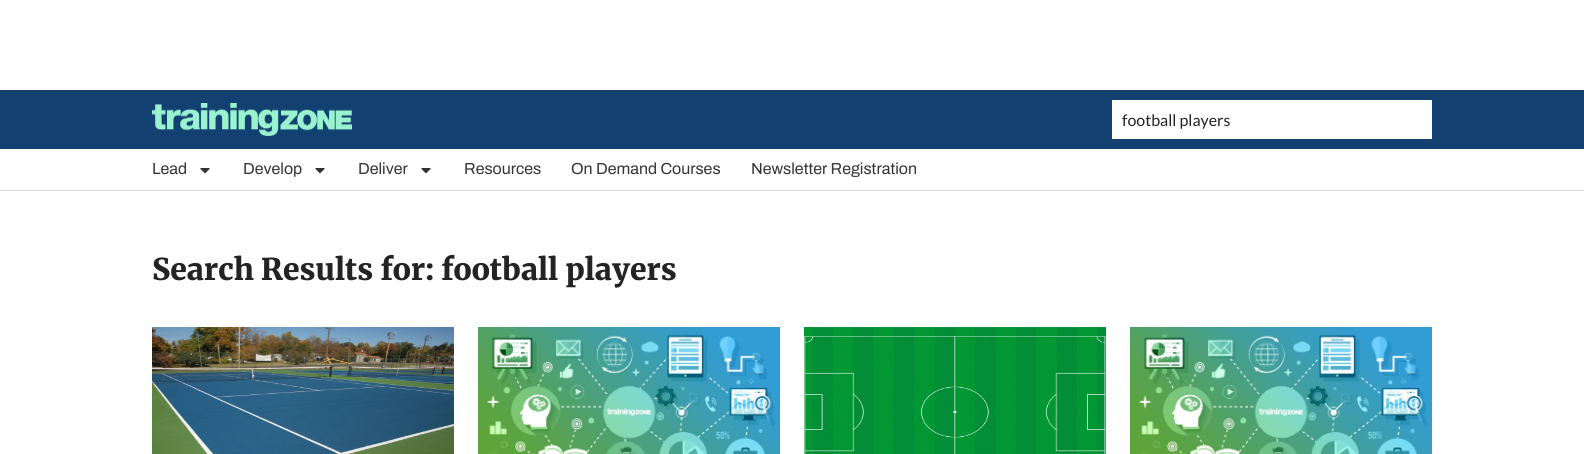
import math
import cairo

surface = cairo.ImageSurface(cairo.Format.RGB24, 1584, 454)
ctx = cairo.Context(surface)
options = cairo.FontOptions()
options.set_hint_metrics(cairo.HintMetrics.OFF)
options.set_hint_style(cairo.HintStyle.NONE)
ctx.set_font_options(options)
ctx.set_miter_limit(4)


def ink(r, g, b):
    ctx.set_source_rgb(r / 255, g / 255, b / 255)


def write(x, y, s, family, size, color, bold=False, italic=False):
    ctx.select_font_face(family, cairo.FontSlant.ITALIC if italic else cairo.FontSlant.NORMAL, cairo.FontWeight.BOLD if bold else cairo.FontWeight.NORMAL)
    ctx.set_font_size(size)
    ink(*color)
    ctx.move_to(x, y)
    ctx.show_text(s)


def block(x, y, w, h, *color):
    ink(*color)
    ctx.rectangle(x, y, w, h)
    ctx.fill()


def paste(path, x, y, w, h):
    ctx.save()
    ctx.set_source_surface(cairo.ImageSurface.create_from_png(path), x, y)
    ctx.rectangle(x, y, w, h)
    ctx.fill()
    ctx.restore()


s1 = dict(family="Lato", size=16, color=(35, 35, 35))
s2 = dict(family="Archivo", size=16, color=(52, 52, 52))
s3 = dict(family="Merriweather Black", size=30, color=(35, 35, 35))

ink(255, 255, 255)
ctx.paint()
block(0, 90, 1584, 59, 18, 64, 113)
paste("pic1.png", 152, 103, 200, 33)
block(1112, 100, 320, 39, 255, 255, 255)
write(1122, 126, "football players", **s1)
block(0, 190, 1584, 1, 216, 216, 216)
write(152, 174, "Lead", **s2)
paste("pic2.png", 200, 168, 10, 6)
write(243, 174, "Develop", **s2)
paste("pic2.png", 315, 168, 10, 6)
write(358, 174, "Deliver", **s2)
paste("pic2.png", 421, 168, 10, 6)
write(464, 174, "Resources", **s2)
write(571, 174, "On Demand Courses", **s2)
write(751, 174, "Newsletter Registration", **s2)
write(152, 280, "Search Results for: football players", **s3)
paste("pic3.png", 152, 327, 302, 127)
paste("pic4.png", 478, 327, 302, 127)
paste("pic5.png", 804, 327, 302, 127)
paste("pic4.png", 1130, 327, 302, 127)
surface.write_to_png("screenshot.png")
